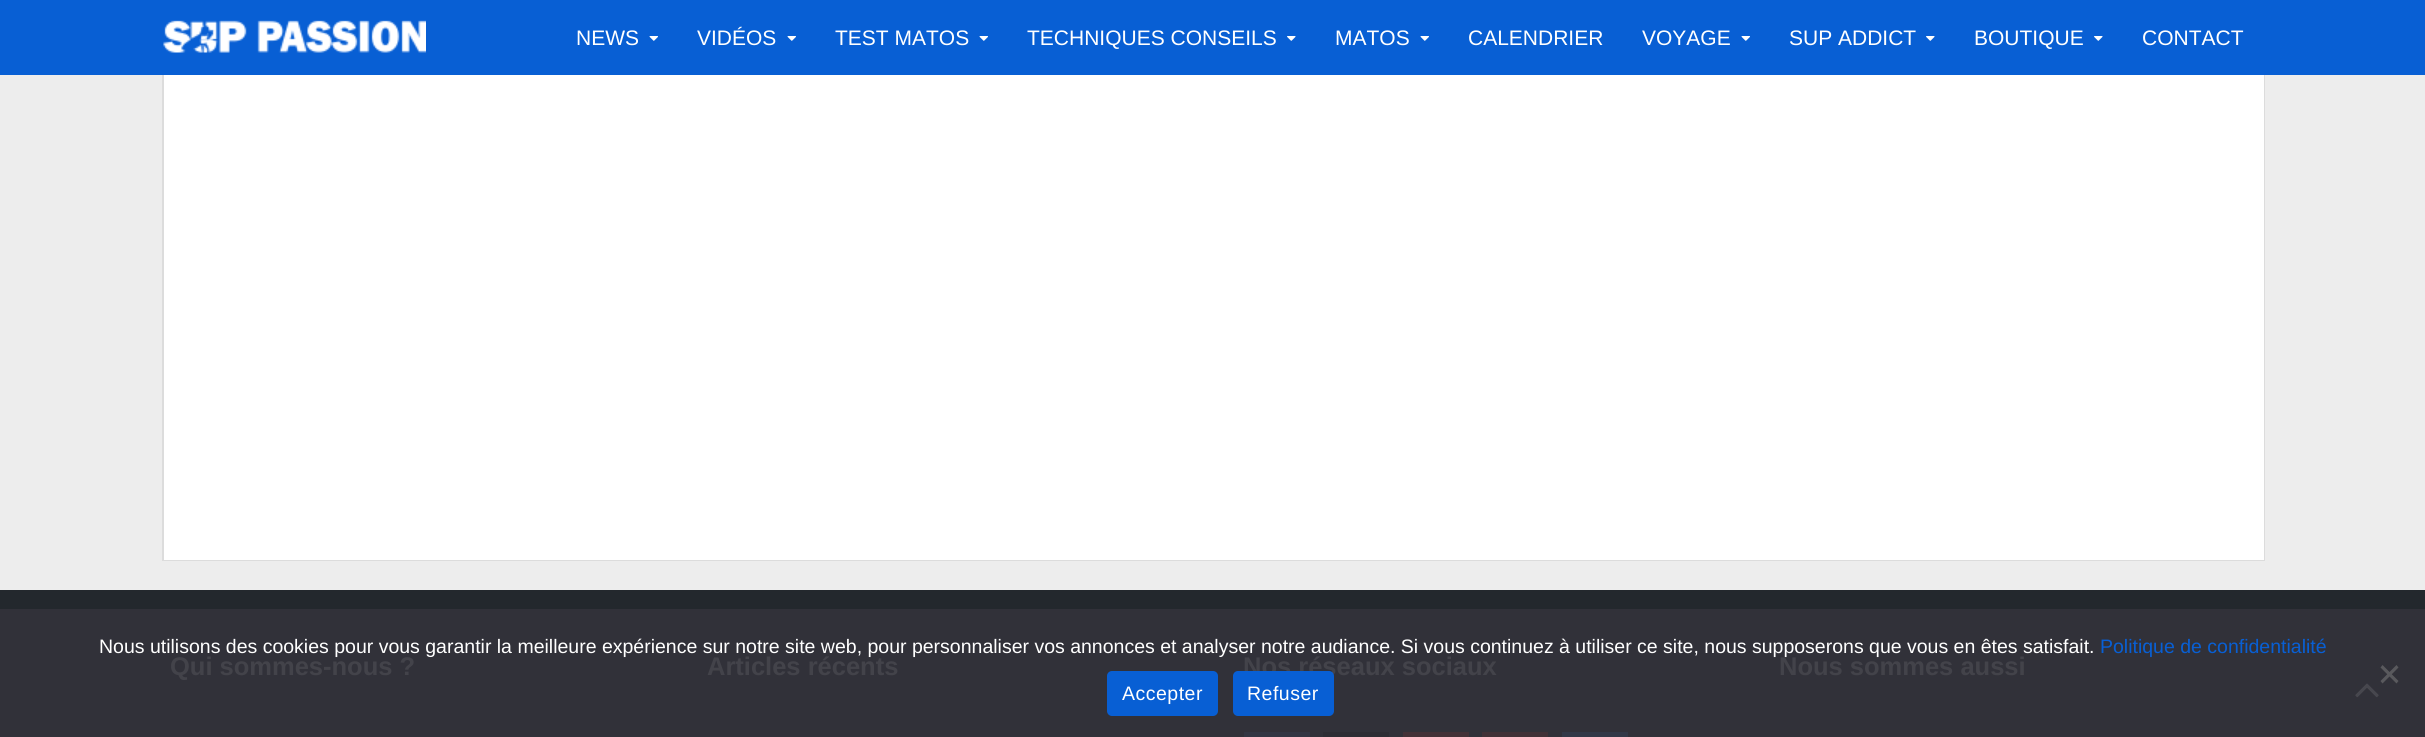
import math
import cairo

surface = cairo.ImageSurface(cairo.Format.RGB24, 2425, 737)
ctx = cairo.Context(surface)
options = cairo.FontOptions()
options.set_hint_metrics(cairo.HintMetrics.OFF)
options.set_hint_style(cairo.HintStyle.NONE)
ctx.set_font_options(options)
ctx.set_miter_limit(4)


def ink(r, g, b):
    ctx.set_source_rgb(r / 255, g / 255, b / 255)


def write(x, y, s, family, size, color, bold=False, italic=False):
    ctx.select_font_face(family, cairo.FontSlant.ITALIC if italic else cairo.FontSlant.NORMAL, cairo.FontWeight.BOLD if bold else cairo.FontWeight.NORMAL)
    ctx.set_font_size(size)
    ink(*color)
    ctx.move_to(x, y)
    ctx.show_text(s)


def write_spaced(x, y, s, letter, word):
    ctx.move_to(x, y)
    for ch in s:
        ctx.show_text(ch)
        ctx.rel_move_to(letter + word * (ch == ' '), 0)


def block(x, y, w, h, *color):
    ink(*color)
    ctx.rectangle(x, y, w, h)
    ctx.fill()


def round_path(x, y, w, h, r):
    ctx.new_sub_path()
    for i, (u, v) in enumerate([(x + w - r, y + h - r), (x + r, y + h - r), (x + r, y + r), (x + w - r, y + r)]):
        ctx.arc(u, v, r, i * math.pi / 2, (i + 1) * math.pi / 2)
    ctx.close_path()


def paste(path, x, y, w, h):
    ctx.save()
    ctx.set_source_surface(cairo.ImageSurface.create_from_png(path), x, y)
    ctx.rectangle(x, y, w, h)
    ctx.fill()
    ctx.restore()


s1 = dict(family="Liberation Sans", size=21, color=(255, 255, 255))
s2 = dict(family="Liberation Sans", size=19.5, color=(255, 255, 255))
s3 = dict(family="Liberation Sans", size=19.5, color=(8, 95, 212))
s4 = dict(family="Liberation Sans", size=25.5, color=(67, 67, 74), bold=True)

ink(237, 237, 237)
ctx.paint()
ctx.rectangle(163, -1, 2101, 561)
ink(220, 220, 220)
ctx.stroke()
block(164, 75, 2100, 485, 255, 255, 255)
block(0, 0, 2425, 75, 8, 95, 212)
paste("pic1.png", 163, 20, 263, 33)
write(576, 45, "NEWS", **s1)
paste("pic2.png", 649, 36, 9, 5)
write(697, 45, "VIDÉOS", **s1)
paste("pic2.png", 787, 36, 9, 5)
write(835, 45, "TEST MATOS", **s1)
paste("pic2.png", 979, 36, 9, 5)
write(1027, 45, "TECHNIQUES CONSEILS", **s1)
paste("pic3.png", 1287, 36, 9, 5)
write(1335, 45, "MATOS", **s1)
paste("pic2.png", 1420, 36, 9, 5)
write(1468, 45, "CALENDRIER", **s1)
write(1642, 45, "VOYAGE", **s1)
paste("pic2.png", 1741, 36, 9, 5)
write(1789, 45, "SUP ADDICT", **s1)
paste("pic3.png", 1926, 36, 9, 5)
write(1974, 45, "BOUTIQUE", **s1)
paste("pic3.png", 2094, 36, 9, 5)
write(2142, 45, "CONTACT", **s1)
block(0, 609, 2425, 128, 49, 49, 57)
write(99, 653, "Nous utilisons des cookies pour vous garantir la meilleure expérience sur notre site web, pour personnaliser vos annonces et analyser notre audiance. Si vous continuez à utiliser ce site, nous supposerons que vous en êtes satisfait.", **s2)
write(2100, 653, "Politique de confidentialité", **s3)
ink(89, 89, 93)
ctx.new_path()
ctx.move_to(2396.5, 665)
ctx.line_to(2398.5, 667.5)
ctx.line_to(2382.5, 683.5)
ctx.line_to(2380.5, 681)
ctx.close_path()
ctx.fill()
ctx.new_path()
ctx.move_to(2380.5, 667.5)
ctx.line_to(2382.5, 665)
ctx.line_to(2398.5, 681)
ctx.line_to(2396.5, 683.5)
ctx.close_path()
ctx.fill()
ink(8, 95, 212)
round_path(1107, 671, 111, 45, 5)
ctx.fill()
ink(255, 255, 255)
write_spaced(1122, 700, "Accepter", 0.5, 0)
write(1243, 675, "Nos réseaux sociaux", **s4)
ink(8, 95, 212)
round_path(1233, 671, 101, 45, 5)
ctx.fill()
ctx.select_font_face("Liberation Sans")
ctx.set_font_size(19.5)
ink(255, 255, 255)
write_spaced(1247, 700, "Refuser", 0.5, 0)
block(0, 590, 2425, 19, 35, 40, 45)
write(170, 675, "Qui sommes-nous ?", **s4)
write(707, 675, "Articles récents", **s4)
block(1244, 732, 66, 5, 51, 54, 67)
block(1323, 732, 66, 5, 45, 45, 52)
block(1403, 732, 66, 5, 67, 49, 55)
block(1482, 732, 66, 5, 65, 49, 55)
block(1562, 732, 66, 5, 50, 56, 71)
write(1779, 675, "Nous sommes aussi", **s4)
paste("pic4.png", 2355, 683, 24, 15)
surface.write_to_png("screenshot.png")
